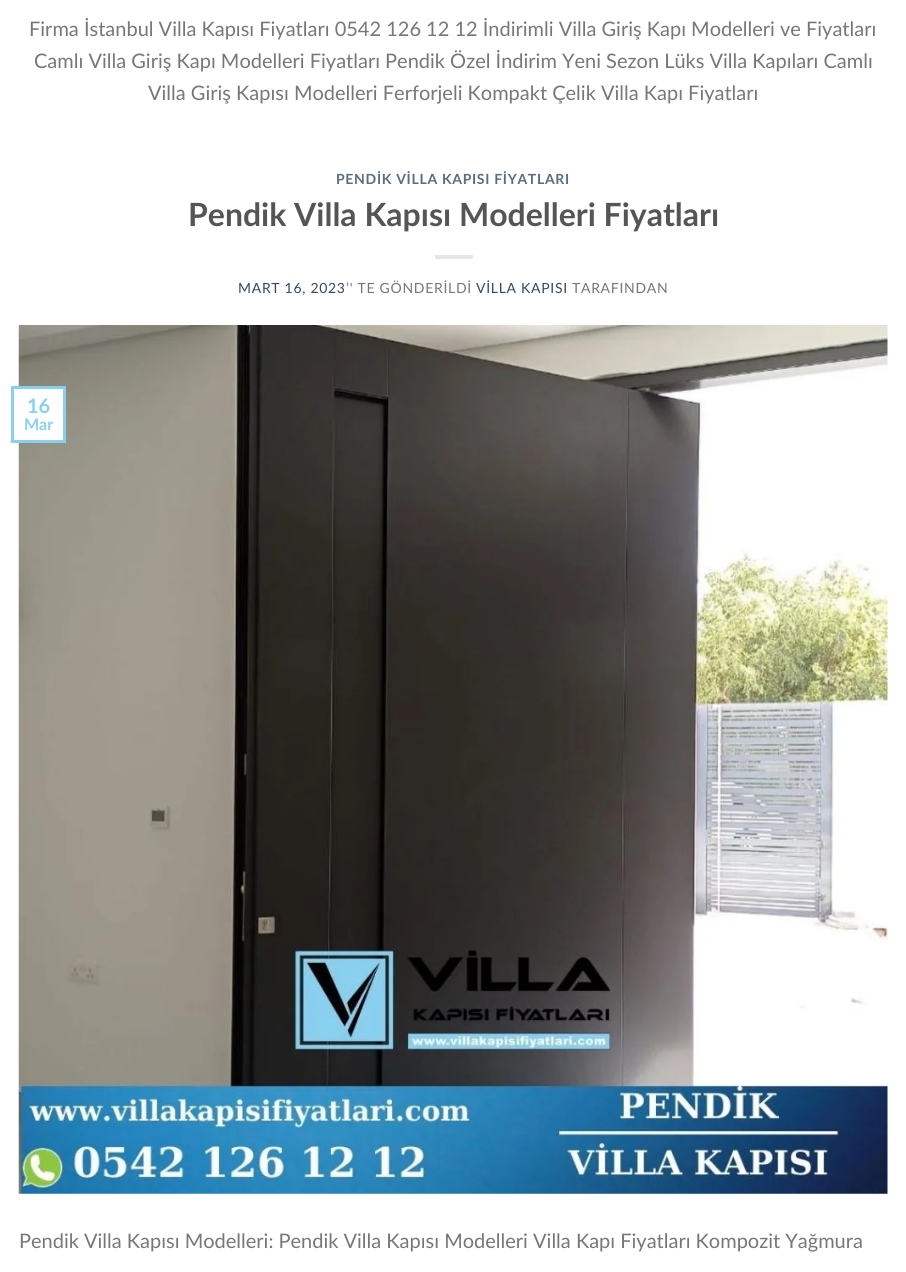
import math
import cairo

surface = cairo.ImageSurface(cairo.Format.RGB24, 906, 1272)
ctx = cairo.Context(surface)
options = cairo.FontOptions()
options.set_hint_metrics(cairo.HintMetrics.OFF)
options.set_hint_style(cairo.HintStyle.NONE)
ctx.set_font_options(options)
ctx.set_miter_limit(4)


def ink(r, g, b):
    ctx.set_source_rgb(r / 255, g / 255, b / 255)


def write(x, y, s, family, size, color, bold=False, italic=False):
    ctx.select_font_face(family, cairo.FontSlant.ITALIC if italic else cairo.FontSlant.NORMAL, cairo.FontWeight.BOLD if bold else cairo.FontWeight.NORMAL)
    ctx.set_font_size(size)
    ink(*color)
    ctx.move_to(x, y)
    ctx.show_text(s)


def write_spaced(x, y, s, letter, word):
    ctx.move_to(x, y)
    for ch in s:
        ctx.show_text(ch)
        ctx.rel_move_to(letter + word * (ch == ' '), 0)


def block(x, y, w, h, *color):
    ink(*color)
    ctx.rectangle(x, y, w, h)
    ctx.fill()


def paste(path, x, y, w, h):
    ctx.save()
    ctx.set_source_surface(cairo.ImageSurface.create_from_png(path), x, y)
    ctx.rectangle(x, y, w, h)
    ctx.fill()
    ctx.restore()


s1 = dict(family="Lato", size=20, color=(119, 119, 119))
s2 = dict(family="Lato", size=32, color=(85, 85, 85), bold=True)
s3 = dict(family="Lato", size=20, color=(137, 207, 240), bold=True)
s4 = dict(family="Lato", size=16, color=(137, 207, 240), bold=True)

ink(255, 255, 255)
ctx.paint()
write(29, 36, "Firma İstanbul Villa Kapısı Fiyatları 0542 126 12 12 İndirimli Villa Giriş Kapı Modelleri ve Fiyatları", **s1)
write(34, 68, "Camlı Villa Giriş Kapı Modelleri Fiyatları Pendik Özel İndirim Yeni Sezon Lüks Villa Kapıları Camlı", **s1)
write(148, 100, "Villa Giriş Kapısı Modelleri Ferforjeli Kompakt Çelik Villa Kapı Fiyatları", **s1)
ctx.select_font_face("Lato", cairo.FontSlant.NORMAL, cairo.FontWeight.BOLD)
ctx.set_font_size(14)
ink(92, 109, 129)
write_spaced(336, 184, "PENDİK VİLLA KAPISI FİYATLARI", 0.7, 0)
write(188, 226, "Pendik Villa Kapısı Modelleri Fiyatları", **s2)
block(435, 255, 38, 4, 230, 230, 230)
ctx.select_font_face("Lato")
ctx.set_font_size(14)
ink(51, 72, 98)
write_spaced(238, 293, "MART 16, 2023", 0.7, 0)
ink(119, 119, 119)
write_spaced(346, 293, "’' TE GÖNDERİLDİ", 0.7, 0)
ink(51, 72, 98)
write_spaced(476, 293, "VİLLA KAPISI", 0.7, 0)
ink(119, 119, 119)
write_spaced(572, 293, "TARAFINDAN", 0.7, 0)
paste("pic1.png", 18, 325, 870, 869)
block(18, 389, 45, 51, 255, 255, 255)
ctx.rectangle(12.5, 387.5, 52, 54)
ink(137, 207, 240)
ctx.set_line_width(3)
ctx.stroke()
write(27, 413, "16", **s3)
write(24, 430, "Mar", **s4)
write(19, 1248, "Pendik Villa Kapısı Modelleri: Pendik Villa Kapısı Modelleri Villa Kapı Fiyatları Kompozit Yağmura", **s1)
surface.write_to_png("screenshot.png")
